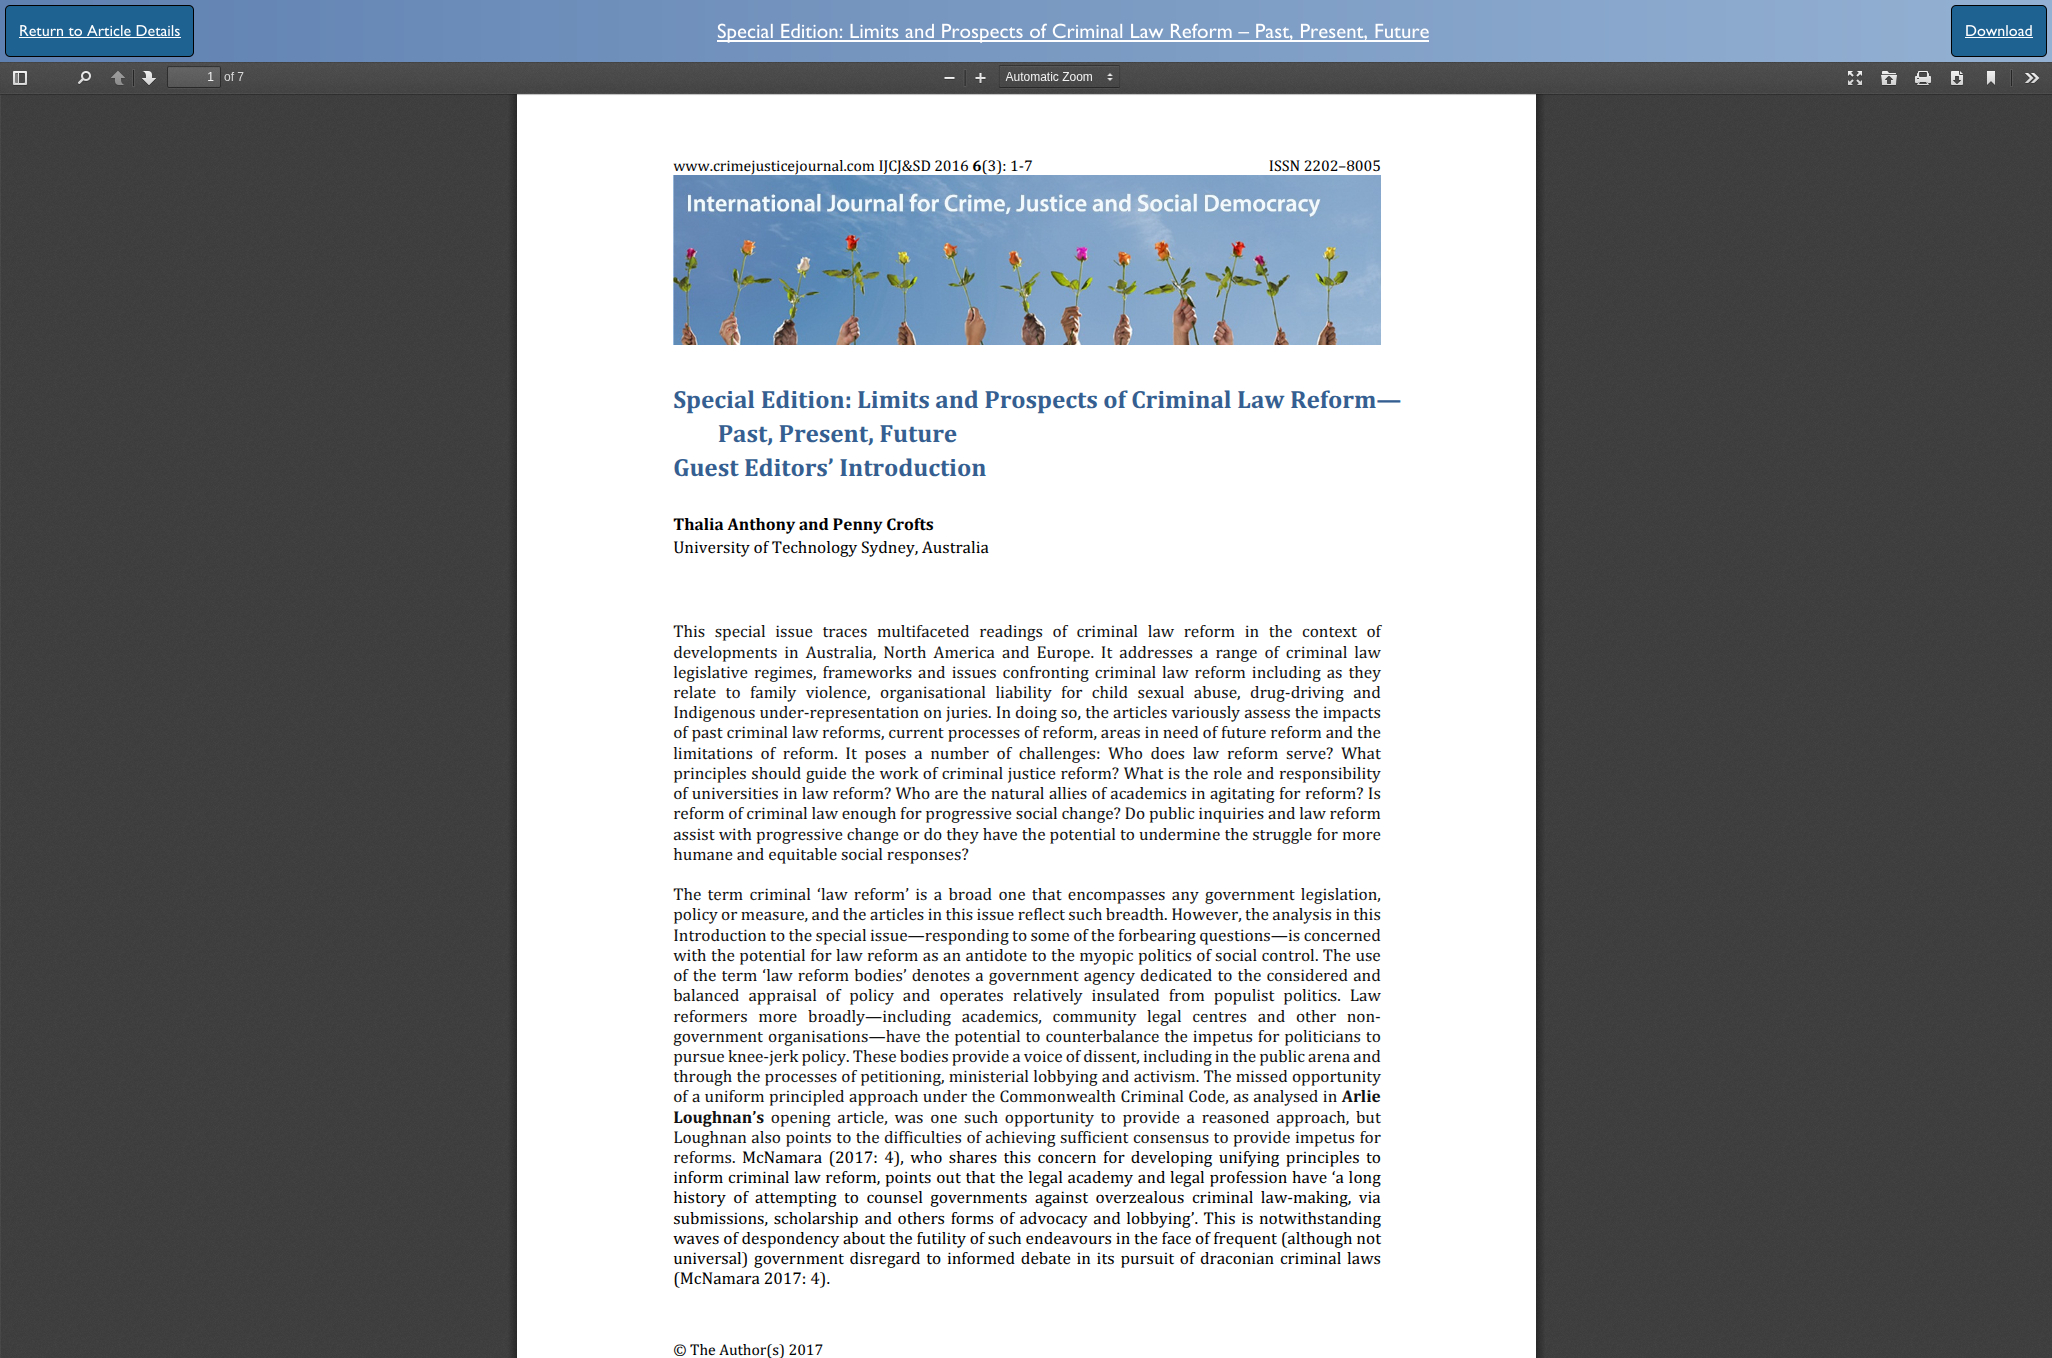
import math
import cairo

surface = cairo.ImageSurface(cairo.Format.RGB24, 2052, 1358)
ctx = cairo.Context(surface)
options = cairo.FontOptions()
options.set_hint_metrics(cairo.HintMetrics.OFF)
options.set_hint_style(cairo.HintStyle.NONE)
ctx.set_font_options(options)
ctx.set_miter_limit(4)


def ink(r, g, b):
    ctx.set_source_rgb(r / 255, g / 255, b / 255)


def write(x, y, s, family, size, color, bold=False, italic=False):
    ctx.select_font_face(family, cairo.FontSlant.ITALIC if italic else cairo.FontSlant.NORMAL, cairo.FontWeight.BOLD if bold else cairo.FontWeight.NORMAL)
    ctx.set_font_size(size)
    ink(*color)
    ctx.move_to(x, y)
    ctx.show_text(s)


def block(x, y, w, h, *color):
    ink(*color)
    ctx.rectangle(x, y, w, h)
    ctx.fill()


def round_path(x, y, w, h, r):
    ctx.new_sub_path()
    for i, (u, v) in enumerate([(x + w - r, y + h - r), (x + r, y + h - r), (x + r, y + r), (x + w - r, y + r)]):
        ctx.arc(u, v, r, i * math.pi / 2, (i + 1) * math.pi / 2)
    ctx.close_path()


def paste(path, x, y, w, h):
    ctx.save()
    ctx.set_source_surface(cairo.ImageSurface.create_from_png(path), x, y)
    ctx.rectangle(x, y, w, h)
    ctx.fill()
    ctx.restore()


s1 = dict(family="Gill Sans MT", size=16, color=(255, 255, 255))
s2 = dict(family="Gill Sans MT", size=20.8, color=(255, 255, 255))

ink(255, 255, 255)
ctx.paint()
gradient = cairo.LinearGradient(0, 31, 2052, 31)
gradient.add_color_stop_rgba(0, 0.373, 0.506, 0.694, 1)
gradient.add_color_stop_rgba(1, 0.58, 0.694, 0.827, 1)
ctx.set_source(gradient)
ctx.rectangle(0, 0, 2052, 62)
ctx.fill()
ink(30, 98, 146)
round_path(5.5, 5.5, 188, 51, 4.5)
ctx.fill_preserve()
ink(0, 0, 0)
ctx.set_line_width(1)
ctx.stroke()
write(19, 36, "Return to Article Details", **s1)
block(19, 37, 162, 1, 255, 255, 255)
block(717, 40, 712, 2, 255, 255, 255)
write(717, 38, "Special Edition: Limits and Prospects of Criminal Law Reform – Past, Present, Future", **s2)
ink(30, 98, 146)
round_path(1951.5, 5.5, 95, 51, 4.5)
ctx.fill_preserve()
ink(0, 0, 0)
ctx.stroke()
write(1965, 36, "Download", **s1)
block(1965, 37, 68, 1, 255, 255, 255)
paste("pic1.png", 0, 62, 2052, 1296)
surface.write_to_png("screenshot.png")
